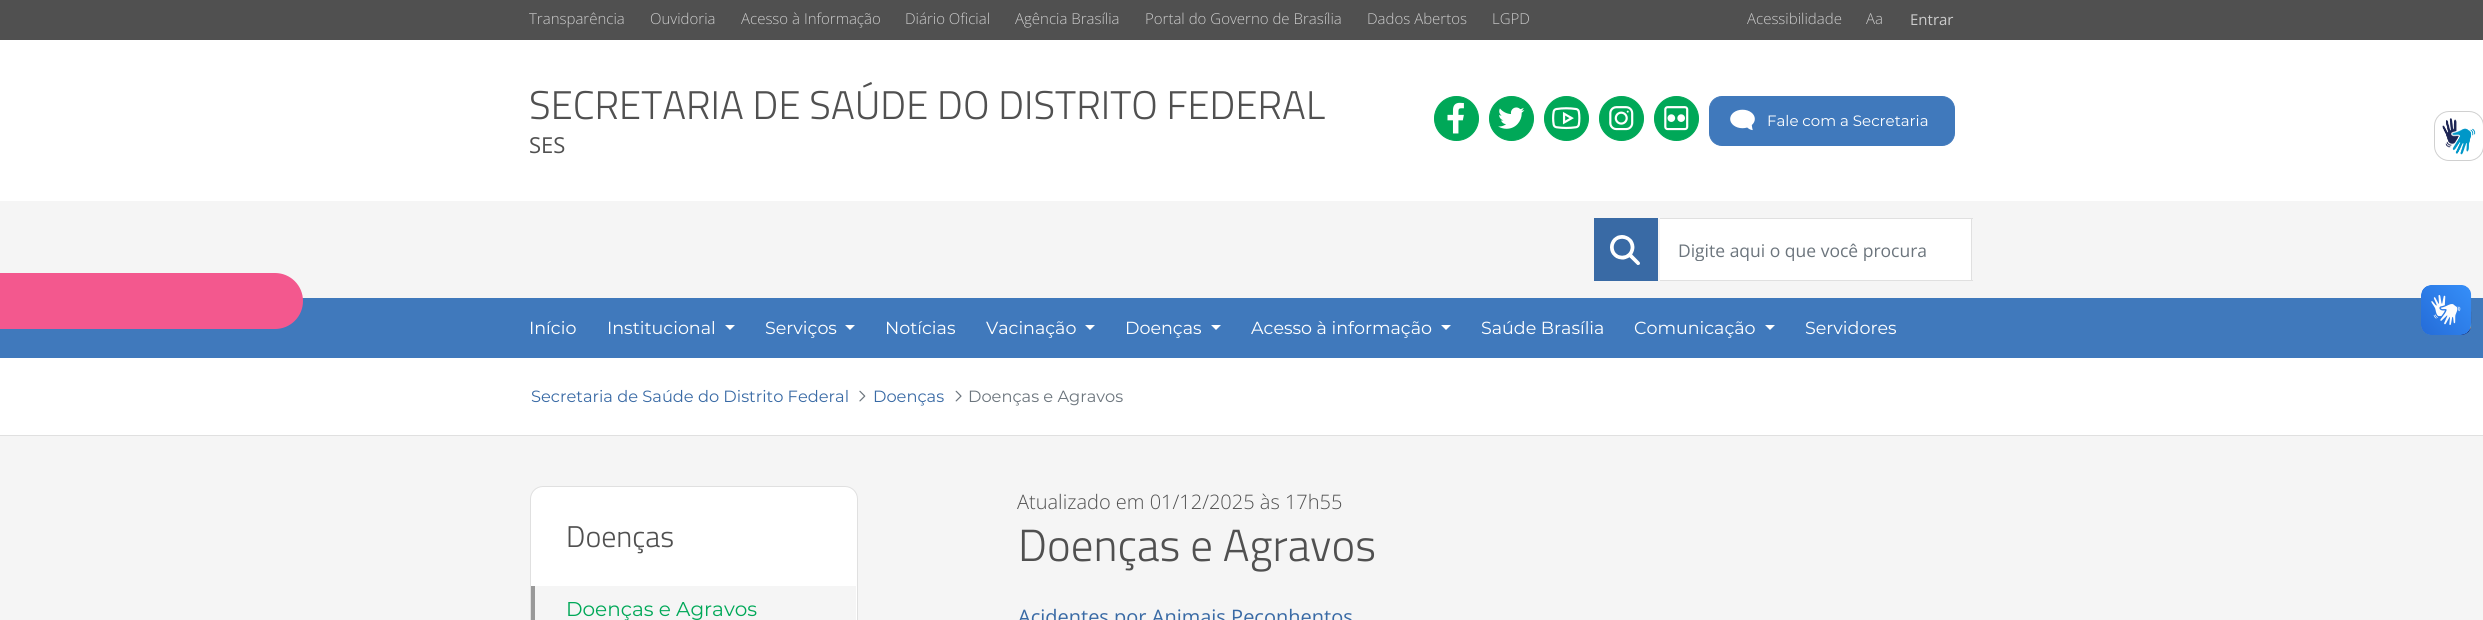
import math
import cairo

surface = cairo.ImageSurface(cairo.Format.RGB24, 2483, 620)
ctx = cairo.Context(surface)
options = cairo.FontOptions()
options.set_hint_metrics(cairo.HintMetrics.OFF)
options.set_hint_style(cairo.HintStyle.NONE)
ctx.set_font_options(options)
ctx.set_miter_limit(4)


def ink(r, g, b):
    ctx.set_source_rgb(r / 255, g / 255, b / 255)


def write(x, y, s, family, size, color, bold=False, italic=False):
    ctx.select_font_face(family, cairo.FontSlant.ITALIC if italic else cairo.FontSlant.NORMAL, cairo.FontWeight.BOLD if bold else cairo.FontWeight.NORMAL)
    ctx.set_font_size(size)
    ink(*color)
    ctx.move_to(x, y)
    ctx.show_text(s)


def block(x, y, w, h, *color):
    ink(*color)
    ctx.rectangle(x, y, w, h)
    ctx.fill()


def round_path(x, y, w, h, r):
    ctx.new_sub_path()
    for i, (u, v) in enumerate([(x + w - r, y + h - r), (x + r, y + h - r), (x + r, y + r), (x + w - r, y + r)]):
        ctx.arc(u, v, r, i * math.pi / 2, (i + 1) * math.pi / 2)
    ctx.close_path()


def paste(path, x, y, w, h):
    ctx.save()
    ctx.set_source_surface(cairo.ImageSurface.create_from_png(path), x, y)
    ctx.rectangle(x, y, w, h)
    ctx.fill()
    ctx.restore()


s1 = dict(family="Open Sans Light", size=15, color=(204, 204, 204))
s2 = dict(family="Open Sans", size=15, color=(204, 204, 204))
s3 = dict(family="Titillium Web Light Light", size=40, color=(80, 80, 80))
s4 = dict(family="Open Sans", size=22, color=(80, 80, 80))
s5 = dict(family="Montserrat Thin", size=15, color=(255, 255, 255))
s6 = dict(family="Open Sans", size=17.5, color=(108, 117, 125))
s7 = dict(family="Montserrat Thin", size=17.5, color=(255, 255, 255))
s8 = dict(family="Montserrat Thin", size=16.25, color=(57, 106, 165))
s9 = dict(family="Montserrat Thin", size=16.25, color=(108, 117, 125))
s10 = dict(family="Titillium Web Light Light", size=30, color=(80, 80, 80))
s11 = dict(family="Montserrat Thin", size=20, color=(0, 168, 88))
s12 = dict(family="Open Sans Light", size=20, color=(80, 80, 80))
s13 = dict(family="Titillium Web Light Light", size=45, color=(80, 80, 80))
s14 = dict(family="Open Sans", size=20, color=(57, 106, 165))

ink(245, 245, 245)
ctx.paint()
block(0, 0, 2483, 40, 80, 80, 80)
write(529, 24, "Transparência", **s1)
write(650, 24, "Ouvidoria", **s1)
write(741, 24, "Acesso à Informação", **s1)
write(905, 24, "Diário Oficial", **s1)
write(1015, 24, "Agência Brasília", **s1)
write(1145, 24, "Portal do Governo de Brasília", **s1)
write(1367, 24, "Dados Abertos", **s1)
write(1492, 24, "LGPD", **s1)
write(1747, 24, "Acessibilidade", **s1)
write(1866, 24, "Aa", **s1)
write(1910, 25, "Entrar", **s2)
block(0, 40, 2483, 161, 255, 255, 255)
write(529, 119, "SECRETARIA DE SAÚDE DO DISTRITO FEDERAL", **s3)
write(529, 153, "SES", **s4)
ink(0, 168, 88)
ctx.new_path()
ctx.arc(1456.5, 118.5, 22, 0, 2 * math.pi)
ctx.fill_preserve()
ctx.set_line_width(1)
ctx.stroke()
paste("pic1.png", 1447, 102, 17, 32)
ctx.arc(1511.5, 118.5, 22, 0, 2 * math.pi)
ctx.fill_preserve()
ctx.stroke()
paste("pic2.png", 1498, 107, 27, 22)
ctx.arc(1566.5, 118.5, 22, 0, 2 * math.pi)
ctx.fill_preserve()
ctx.stroke()
paste("pic3.png", 1552, 107, 29, 23)
ctx.arc(1621.5, 118.5, 22, 0, 2 * math.pi)
ctx.fill_preserve()
ctx.stroke()
paste("pic4.png", 1609, 106, 25, 25)
ctx.arc(1676.5, 118.5, 22, 0, 2 * math.pi)
ctx.fill_preserve()
ctx.stroke()
paste("pic5.png", 1664, 106, 25, 25)
ink(64, 121, 188)
round_path(1709.5, 96.5, 245, 49, 12.5)
ctx.fill_preserve()
ctx.stroke()
paste("pic6.png", 1730, 109, 25, 22)
write(1767, 126, "Fale com a Secretaria", **s5)
block(1594, 218, 64, 63, 57, 106, 165)
paste("pic7.png", 1610, 235, 30, 30)
block(1660, 219, 311, 61, 255, 255, 255)
block(1660, 218, 313, 1, 224, 224, 224)
block(1971, 218, 1, 63, 224, 224, 224)
block(1660, 280, 313, 1, 224, 224, 224)
ctx.save()
ctx.rectangle(1679, 238, 277, 23)
ctx.clip()
write(1678, 257, "Digite aqui o que você procura", **s6)
ctx.restore()
block(0, 298, 2483, 60, 64, 121, 188)
write(529, 334, "Início", **s7)
write(607, 334, "Institucional", **s7)
ctx.new_path()
ctx.move_to(725, 325)
ctx.line_to(735, 325)
ctx.line_to(730, 330)
ctx.close_path()
ctx.fill()
write(765, 334, "Serviços", **s7)
ctx.new_path()
ctx.move_to(845, 325)
ctx.line_to(855, 325)
ctx.line_to(850, 330)
ctx.close_path()
ctx.fill()
write(885, 334, "Notícias", **s7)
write(986, 334, "Vacinação", **s7)
ctx.new_path()
ctx.move_to(1085, 325)
ctx.line_to(1095, 325)
ctx.line_to(1090, 330)
ctx.close_path()
ctx.fill()
write(1125, 334, "Doenças", **s7)
ctx.new_path()
ctx.move_to(1211, 325)
ctx.line_to(1221, 325)
ctx.line_to(1216, 330)
ctx.close_path()
ctx.fill()
write(1251, 334, "Acesso à informação", **s7)
ctx.new_path()
ctx.move_to(1441, 325)
ctx.line_to(1451, 325)
ctx.line_to(1446, 330)
ctx.close_path()
ctx.fill()
write(1481, 334, "Saúde Brasília", **s7)
write(1634, 334, "Comunicação", **s7)
ctx.new_path()
ctx.move_to(1765, 325)
ctx.line_to(1775, 325)
ctx.line_to(1770, 330)
ctx.close_path()
ctx.fill()
write(1805, 334, "Servidores", **s7)
block(0, 358, 2483, 77, 255, 255, 255)
block(0, 435, 2483, 1, 224, 224, 224)
write(531, 402, "Secretaria de Saúde do Distrito Federal", **s8)
paste("pic8.png", 859, 390, 7, 12)
write(873, 402, "Doenças", **s8)
paste("pic9.png", 955, 390, 7, 12)
write(968, 402, "Doenças e Agravos", **s9)
ink(255, 255, 255)
round_path(530.5, 486.5, 327, 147, 12.5)
ctx.fill_preserve()
ink(224, 224, 224)
ctx.stroke()
write(566, 547, "Doenças", **s10)
block(535, 586, 321, 34, 245, 245, 245)
block(531, 586, 4, 34, 153, 153, 153)
write(566, 616, "Doenças e Agravos", **s11)
write(1017, 509, "Atualizado em 01/12/2025 às 17h55", **s12)
write(1018, 561, "Doenças e Agravos", **s13)
write(1018, 624, "Acidentes por Animais Peçonhentos", **s14)
round_path(2434.5, 111.5, 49, 49, 14.5)
ink(208, 208, 208)
ctx.stroke()
paste("pic10.png", 2442, 118, 34, 37)
ink(243, 88, 142)
ctx.new_path()
ctx.move_to(-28, 273)
ctx.line_to(275, 273)
ctx.curve_to(290.5, 273, 303, 285.5, 303, 301)
ctx.curve_to(303, 316.5, 290.5, 329, 275, 329)
ctx.line_to(-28, 329)
ctx.close_path()
ctx.fill()
paste("pic11.png", 2421, 285, 51, 50)
paste("pic12.png", 2421, 285, 50, 50)
surface.write_to_png("screenshot.png")
